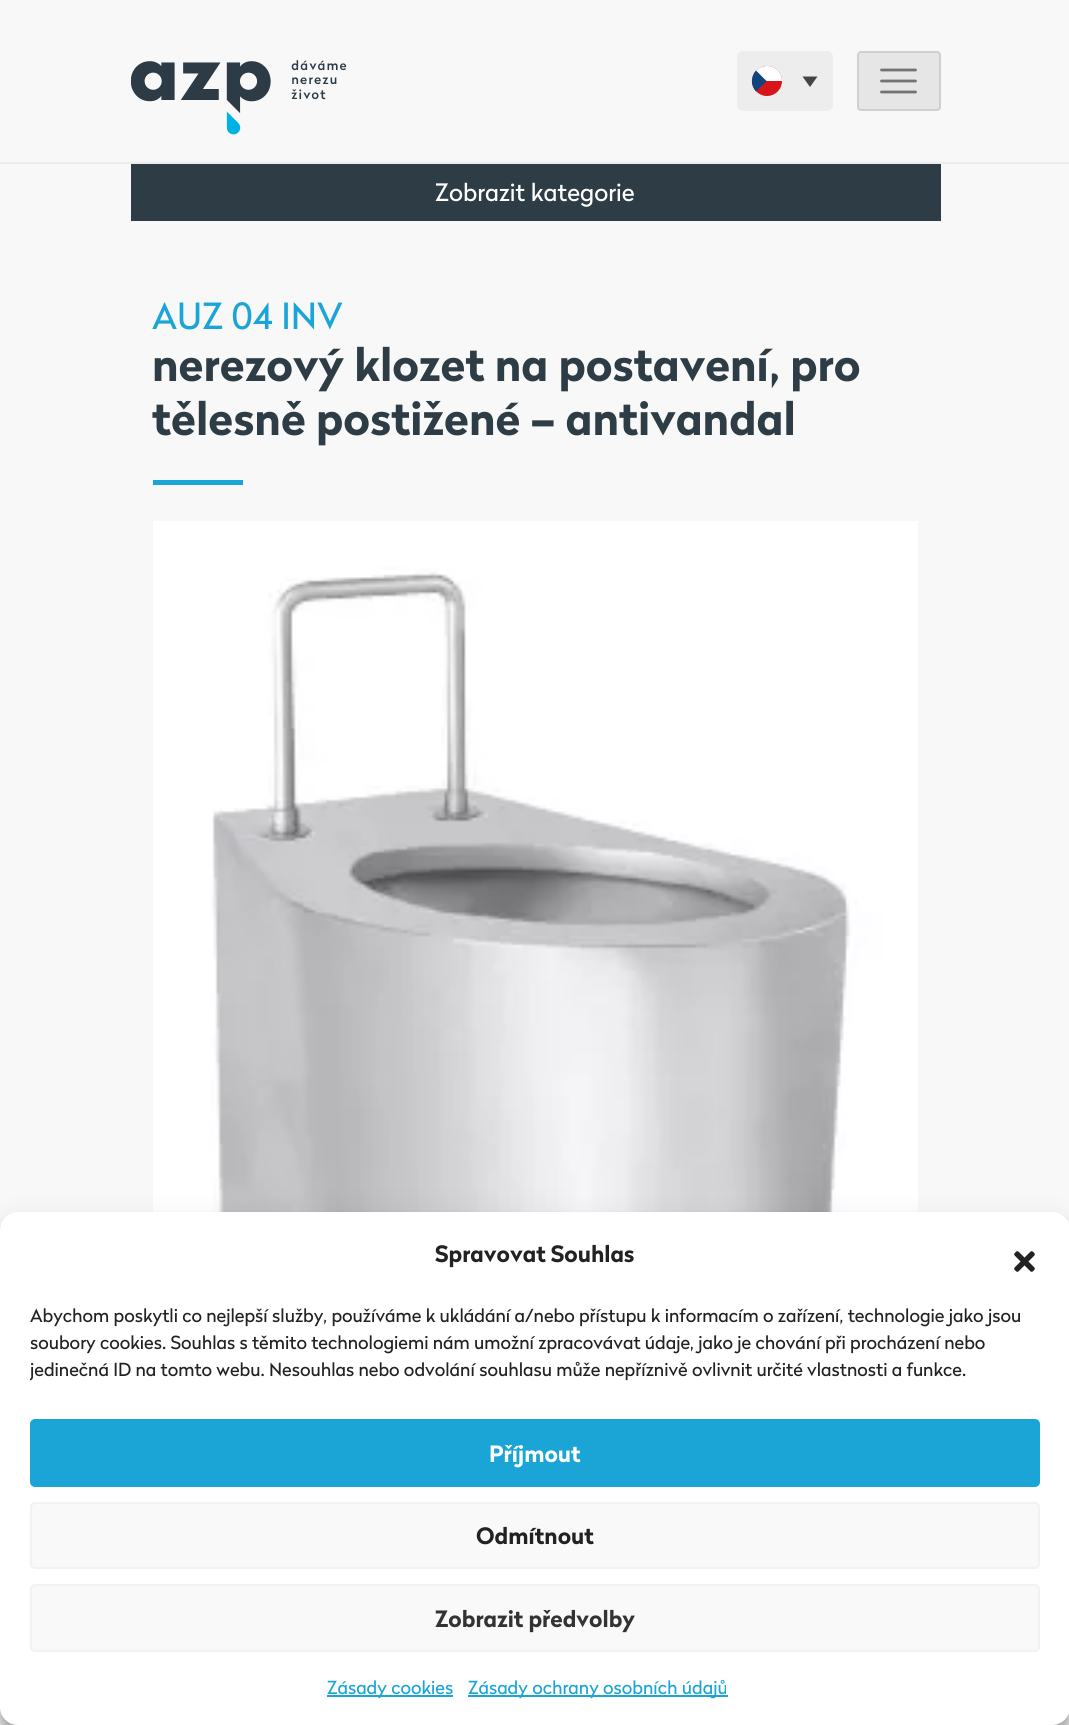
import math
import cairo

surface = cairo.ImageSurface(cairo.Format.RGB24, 1069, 1725)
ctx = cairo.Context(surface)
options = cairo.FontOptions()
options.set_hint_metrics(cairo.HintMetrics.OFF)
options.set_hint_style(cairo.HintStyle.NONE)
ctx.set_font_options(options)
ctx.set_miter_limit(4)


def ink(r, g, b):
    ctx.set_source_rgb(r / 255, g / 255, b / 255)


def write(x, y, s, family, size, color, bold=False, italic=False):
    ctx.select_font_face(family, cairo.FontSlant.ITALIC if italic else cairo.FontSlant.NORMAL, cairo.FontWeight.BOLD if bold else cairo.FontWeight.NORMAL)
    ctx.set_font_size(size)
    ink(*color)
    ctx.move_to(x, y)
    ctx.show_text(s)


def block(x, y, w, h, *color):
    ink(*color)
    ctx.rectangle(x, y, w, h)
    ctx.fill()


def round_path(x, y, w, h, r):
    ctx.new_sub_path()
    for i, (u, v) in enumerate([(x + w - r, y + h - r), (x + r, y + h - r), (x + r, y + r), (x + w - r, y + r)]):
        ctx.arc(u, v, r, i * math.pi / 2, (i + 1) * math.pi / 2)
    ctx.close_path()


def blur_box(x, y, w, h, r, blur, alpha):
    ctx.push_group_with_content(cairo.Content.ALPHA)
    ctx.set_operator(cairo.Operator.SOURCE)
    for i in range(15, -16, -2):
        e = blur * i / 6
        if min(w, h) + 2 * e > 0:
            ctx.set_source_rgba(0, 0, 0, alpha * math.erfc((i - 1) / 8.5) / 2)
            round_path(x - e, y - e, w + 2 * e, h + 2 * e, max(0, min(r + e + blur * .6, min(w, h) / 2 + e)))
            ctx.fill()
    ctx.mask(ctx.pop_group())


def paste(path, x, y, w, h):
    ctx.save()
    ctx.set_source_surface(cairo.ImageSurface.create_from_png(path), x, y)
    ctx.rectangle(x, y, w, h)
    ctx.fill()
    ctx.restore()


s1 = dict(family="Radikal", size=24, color=(255, 255, 255))
s2 = dict(family="Radikal", size=36, color=(27, 165, 215))
s3 = dict(family="Radikal", size=45, color=(46, 60, 69), bold=True)
s4 = dict(family="Radikal", size=22.5, color=(34, 34, 34), bold=True)
s5 = dict(family="Radikal", size=18, color=(34, 34, 34))
s6 = dict(family="Radikal", size=22.5, color=(255, 255, 255), bold=True)
s7 = dict(family="Radikal", size=22.5, color=(51, 51, 51), bold=True)
s8 = dict(family="Radikal", size=18, color=(27, 165, 215))

ink(248, 248, 248)
ctx.paint()
block(0, 162, 1069, 2, 235, 235, 235)
paste("pic1.png", 131, 60, 216, 75)
ink(237, 237, 237)
round_path(737, 51, 96, 60, 6)
ctx.fill()
ink(215, 20, 26)
ctx.arc(767, 81, 15, 0, 2 * math.pi)
ctx.fill()
ink(255, 255, 255)
ctx.new_path()
ctx.move_to(767, 66)
ctx.curve_to(775.5, 66, 782, 72.5, 782, 81)
ctx.line_to(752, 81)
ctx.curve_to(752, 72.5, 758.5, 66, 767, 66)
ctx.close_path()
ctx.fill()
ink(17, 69, 126)
ctx.new_path()
ctx.move_to(766.5, 81)
ctx.line_to(756, 91.5)
ctx.curve_to(750.5, 85.5, 750.5, 76.5, 756, 70.5)
ctx.close_path()
ctx.fill()
ink(68, 68, 68)
ctx.new_path()
ctx.move_to(802.5, 76.5)
ctx.line_to(817.5, 76.5)
ctx.line_to(810, 87)
ctx.close_path()
ctx.fill()
ink(230, 230, 230)
round_path(857, 51, 84, 60, 4)
ctx.fill()
round_path(858, 52, 82, 58, 3)
ctx.set_source_rgba(0, 0, 0, 0.1)
ctx.stroke()
ctx.new_path()
ctx.move_to(881.5, 70)
ctx.line_to(915.5, 70)
ctx.move_to(881.5, 81)
ctx.line_to(915.5, 81)
ctx.move_to(881.5, 92)
ctx.line_to(915.5, 92)
ink(115, 115, 115)
ctx.set_line_width(2.8)
ctx.set_line_cap(cairo.LineCap.ROUND)
ctx.stroke()
block(131, 164, 810, 57, 46, 60, 69)
write(435, 201, "Zobrazit kategorie", **s1)
write(152, 329, "AUZ 04 INV", **s2)
write(152, 381, "nerezový klozet na postavení, pro", **s3)
write(152, 435, "tělesně postižené – antivandal", **s3)
block(153, 480, 90, 5, 27, 165, 215)
paste("pic2.png", 153, 521, 765, 691)
ink(0, 0, 0)
blur_box(0, 1221, 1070, 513, 18, 4.5, 0.23)
blur_box(0, 1227, 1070, 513, 18, 15, 0.19)
ink(255, 255, 255)
round_path(0, 1212, 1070, 513, 18)
ctx.fill()
write(435, 1262, "Spravovat Souhlas", **s4)
paste("pic3.png", 1014, 1251, 21, 21)
write(30, 1322, "Abychom poskytli co nejlepší služby, používáme k ukládání a/nebo přístupu k informacím o zařízení, technologie jako jsou", **s5)
write(30, 1349, "soubory cookies. Souhlas s těmito technologiemi nám umožní zpracovávat údaje, jako je chování při procházení nebo", **s5)
ctx.save()
ctx.rectangle(30, 1301, 1010, 88)
ctx.clip()
write(30, 1376, "jedinečná ID na tomto webu. Nesouhlas nebo odvolání souhlasu může nepříznivě ovlivnit určité vlastnosti a funkce.", **s5)
ctx.restore()
ink(27, 165, 215)
round_path(31, 1420, 1008, 66, 4)
ctx.fill_preserve()
ctx.set_line_width(2)
ctx.set_line_cap(cairo.LineCap.BUTT)
ctx.stroke()
write(489, 1462, "Příjmout", **s6)
ink(249, 249, 249)
round_path(31, 1503, 1008, 65, 4)
ctx.fill_preserve()
ink(242, 242, 242)
ctx.stroke()
write(476, 1544, "Odmítnout", **s4)
ink(249, 249, 249)
round_path(31, 1585, 1008, 66, 4)
ctx.fill_preserve()
ink(242, 242, 242)
ctx.stroke()
write(435, 1627, "Zobrazit předvolby", **s7)
block(327, 1695, 126, 2, 27, 165, 215)
write(327, 1694, "Zásady cookies", **s8)
block(468, 1695, 260, 2, 27, 165, 215)
write(468, 1694, "Zásady ochrany osobních údajů", **s8)
surface.write_to_png("screenshot.png")
